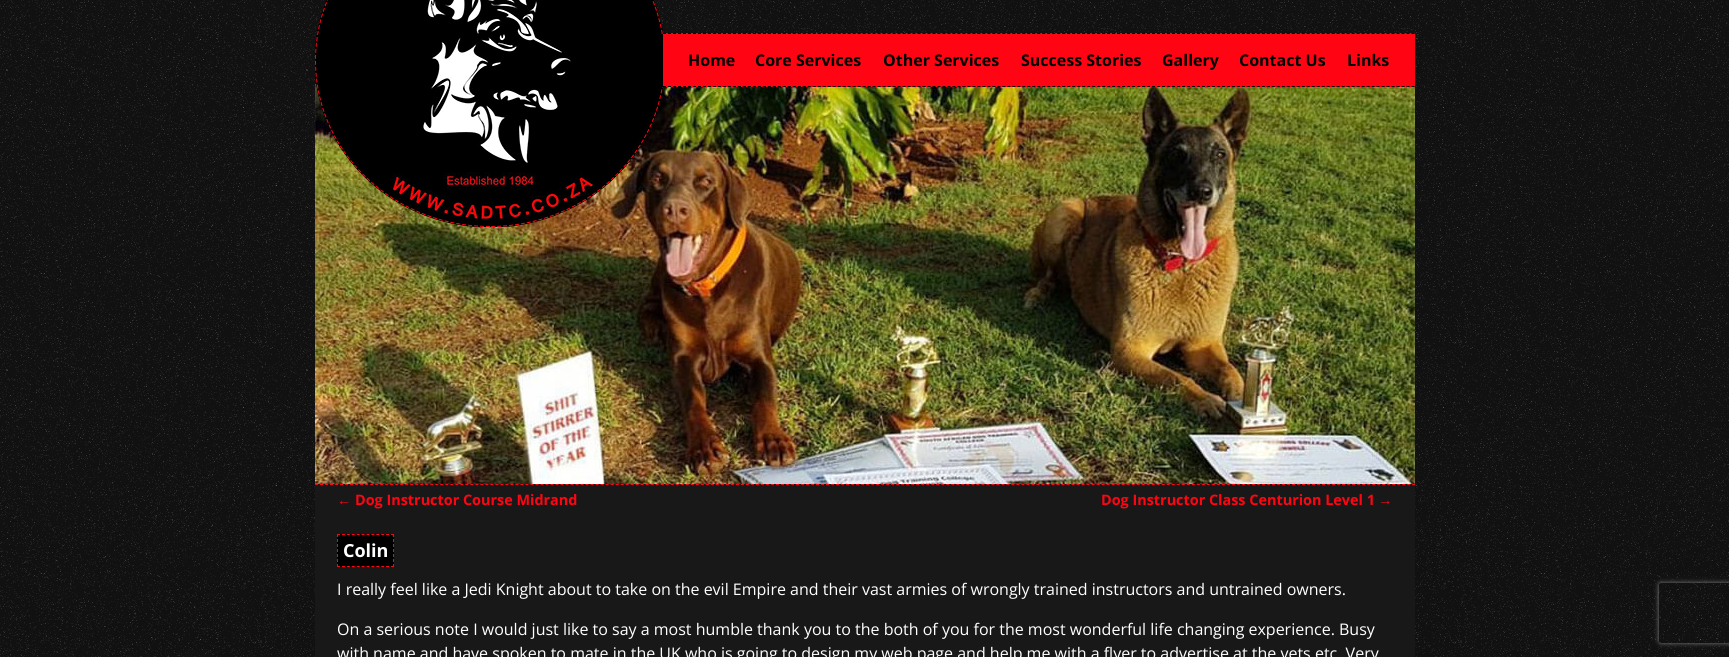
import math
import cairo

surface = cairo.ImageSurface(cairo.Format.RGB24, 1729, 657)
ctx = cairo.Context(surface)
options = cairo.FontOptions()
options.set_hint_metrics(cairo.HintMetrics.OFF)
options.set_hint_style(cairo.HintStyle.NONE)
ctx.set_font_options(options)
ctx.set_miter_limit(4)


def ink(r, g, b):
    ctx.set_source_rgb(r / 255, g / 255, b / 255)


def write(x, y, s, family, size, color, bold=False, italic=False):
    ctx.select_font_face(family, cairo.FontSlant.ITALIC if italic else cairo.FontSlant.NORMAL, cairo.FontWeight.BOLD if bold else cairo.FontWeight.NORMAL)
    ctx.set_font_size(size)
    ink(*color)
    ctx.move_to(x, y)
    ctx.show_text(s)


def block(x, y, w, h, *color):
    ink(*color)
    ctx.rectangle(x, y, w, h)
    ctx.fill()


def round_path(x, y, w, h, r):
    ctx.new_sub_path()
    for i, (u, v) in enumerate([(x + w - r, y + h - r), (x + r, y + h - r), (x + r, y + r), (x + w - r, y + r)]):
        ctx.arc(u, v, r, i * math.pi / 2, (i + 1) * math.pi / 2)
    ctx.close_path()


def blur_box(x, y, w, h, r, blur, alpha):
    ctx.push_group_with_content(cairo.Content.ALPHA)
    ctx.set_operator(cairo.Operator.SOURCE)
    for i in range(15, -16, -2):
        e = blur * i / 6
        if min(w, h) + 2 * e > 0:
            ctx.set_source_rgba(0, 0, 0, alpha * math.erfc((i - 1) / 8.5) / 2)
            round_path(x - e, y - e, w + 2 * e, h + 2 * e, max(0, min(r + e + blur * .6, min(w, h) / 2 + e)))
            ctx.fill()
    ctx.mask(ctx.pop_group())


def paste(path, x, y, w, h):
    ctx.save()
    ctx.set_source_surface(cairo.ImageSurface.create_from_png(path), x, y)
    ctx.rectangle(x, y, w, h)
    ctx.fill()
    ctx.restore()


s1 = dict(family="Open Sans", size=16, color=(0, 0, 0), bold=True)
s2 = dict(family="Liberation Sans", size=14.4, color=(255, 5, 19))
s3 = dict(family="Open Sans", size=14.4, color=(255, 5, 19), bold=True)
s4 = dict(family="Open Sans", size=18, color=(255, 255, 255), bold=True)
s5 = dict(family="Open Sans", size=16, color=(255, 255, 255))

ink(17, 17, 17)
ctx.paint()
paste("pic1.png", 0, 0, 1729, 657)
paste("pic3.png", 315, 84, 1100, 400)
paste("pic2.png", 315, 0, 349, 227)
block(663, 33, 752, 54, 255, 5, 19)
ctx.new_path()
ctx.move_to(663, 33.5)
ctx.line_to(1415, 33.5)
ink(0, 0, 0)
ctx.set_line_width(1)
ctx.set_dash([3, 1.99])
ctx.stroke()
ctx.new_path()
ctx.move_to(663, 86.5)
ctx.line_to(1415, 86.5)
ctx.stroke()
write(688, 66, "Home", **s1)
write(755, 66, "Core Services", **s1)
write(883, 66, "Other Services", **s1)
write(1021, 66, "Success Stories", **s1)
write(1162, 66, "Gallery", **s1)
write(1239, 66, "Contact Us", **s1)
write(1347, 66, "Links", **s1)
block(315, 484, 1100, 173, 24, 24, 24)
ctx.new_path()
ctx.move_to(315, 484.5)
ctx.line_to(1415, 484.5)
ink(255, 5, 19)
ctx.set_dash([3, 2.01])
ctx.stroke()
write(337, 505, "←", **s2)
write(355, 505, "Dog Instructor Course Midrand", **s3)
write(1101, 505, "Dog Instructor Class Centurion Level 1", **s3)
write(1378, 505, "→", **s2)
block(337, 534, 57, 33, 0, 0, 0)
ctx.new_path()
ctx.move_to(337, 534.5)
ctx.line_to(394, 534.5)
ink(255, 5, 19)
ctx.set_dash([3, 1.91])
ctx.stroke()
ctx.new_path()
ctx.move_to(393.5, 534)
ctx.line_to(393.5, 567)
ctx.set_dash([3, 2])
ctx.stroke()
ctx.new_path()
ctx.move_to(337, 566.5)
ctx.line_to(394, 566.5)
ctx.set_dash([3, 1.91])
ctx.stroke()
ctx.new_path()
ctx.move_to(337.5, 534)
ctx.line_to(337.5, 567)
ctx.set_dash([3, 2])
ctx.stroke()
write(343, 557, "Colin", **s4)
write(337, 595, "I really feel like a Jedi Knight about to take on the evil Empire and their vast armies of wrongly trained instructors and untrained owners.", **s5)
write(337, 635, "On a serious note I would just like to say a most humble thank you to the both of you for the most wonderful life changing experience. Busy", **s5)
write(337, 659, "with name and have spoken to mate in the UK who is going to design my web page and help me with a flyer to advertise at the vets etc. Very", **s5)
ctx.save()
ctx.set_fill_rule(cairo.FillRule.EVEN_ODD)
ctx.new_path()
ctx.move_to(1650, 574)
ctx.line_to(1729, 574)
ctx.line_to(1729, 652)
ctx.line_to(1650, 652)
ctx.close_path()
ctx.move_to(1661, 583)
ctx.line_to(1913, 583)
ctx.curve_to(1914, 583, 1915, 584, 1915, 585)
ctx.line_to(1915, 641)
ctx.curve_to(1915, 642, 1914, 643, 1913, 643)
ctx.line_to(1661, 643)
ctx.curve_to(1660, 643, 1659, 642, 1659, 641)
ctx.line_to(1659, 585)
ctx.curve_to(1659, 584, 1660, 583, 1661, 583)
ctx.close_path()
ctx.clip()
ink(128, 128, 128)
blur_box(1659, 583, 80, 60, 2, 2.5, 1)
ctx.restore()
surface.write_to_png("screenshot.png")
